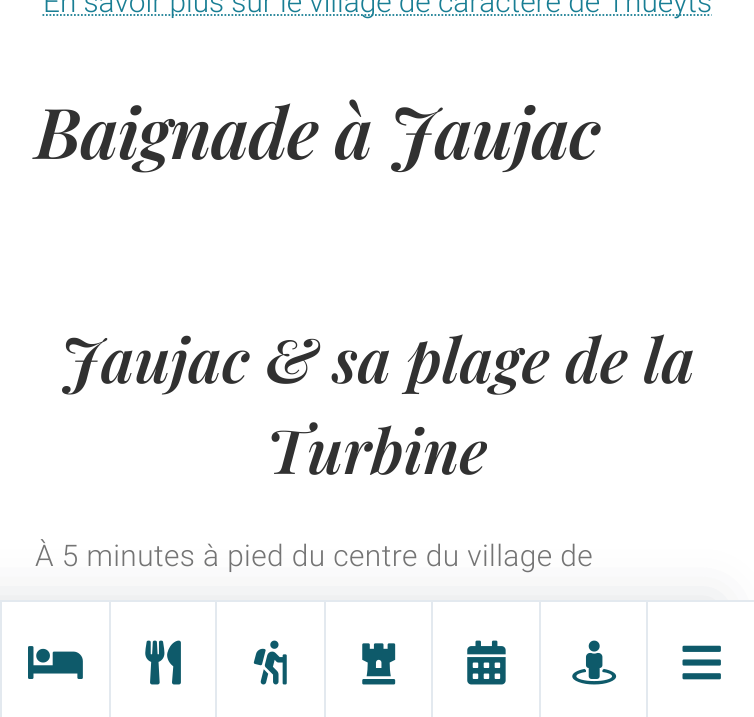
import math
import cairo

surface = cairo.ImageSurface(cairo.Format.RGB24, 754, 717)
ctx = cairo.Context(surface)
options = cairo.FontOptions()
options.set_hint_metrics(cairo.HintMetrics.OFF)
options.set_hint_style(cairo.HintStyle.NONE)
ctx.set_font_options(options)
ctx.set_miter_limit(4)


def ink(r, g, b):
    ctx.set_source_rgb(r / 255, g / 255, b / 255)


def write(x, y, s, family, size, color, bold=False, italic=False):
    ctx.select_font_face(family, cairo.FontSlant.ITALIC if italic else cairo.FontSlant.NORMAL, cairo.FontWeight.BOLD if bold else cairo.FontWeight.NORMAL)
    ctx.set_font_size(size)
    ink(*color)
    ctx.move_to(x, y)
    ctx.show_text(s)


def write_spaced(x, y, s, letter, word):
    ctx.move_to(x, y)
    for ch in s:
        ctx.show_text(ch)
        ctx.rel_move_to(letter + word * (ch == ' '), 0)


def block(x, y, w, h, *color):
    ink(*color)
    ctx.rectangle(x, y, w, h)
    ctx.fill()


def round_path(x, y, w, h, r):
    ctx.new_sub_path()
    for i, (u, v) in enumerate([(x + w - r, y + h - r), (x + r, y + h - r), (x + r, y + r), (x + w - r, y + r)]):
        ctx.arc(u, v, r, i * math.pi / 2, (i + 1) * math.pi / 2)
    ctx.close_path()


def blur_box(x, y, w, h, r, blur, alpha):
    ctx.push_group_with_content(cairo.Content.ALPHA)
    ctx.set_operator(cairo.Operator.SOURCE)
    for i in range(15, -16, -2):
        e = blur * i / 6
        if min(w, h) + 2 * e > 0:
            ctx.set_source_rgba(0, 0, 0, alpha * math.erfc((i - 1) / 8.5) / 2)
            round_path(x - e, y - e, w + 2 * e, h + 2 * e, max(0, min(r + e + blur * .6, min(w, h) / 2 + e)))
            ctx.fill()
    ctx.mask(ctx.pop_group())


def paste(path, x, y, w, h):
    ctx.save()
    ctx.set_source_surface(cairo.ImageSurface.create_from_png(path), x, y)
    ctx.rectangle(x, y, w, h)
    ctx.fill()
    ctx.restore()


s1 = dict(family="Roboto Light", size=29.75, color=(25, 126, 148))
s2 = dict(family="Playfair Display SemiBold", size=61.25, color=(49, 49, 49), italic=True)

ink(255, 255, 255)
ctx.paint()
ctx.new_path()
ctx.move_to(42.5, 15)
ctx.line_to(711.5, 15)
ink(25, 126, 148)
ctx.set_line_width(1.8)
ctx.set_dash([1.75, 1.75])
ctx.stroke()
write(43, 12, "En savoir plus sur le village de caractère de Thueyts", **s1)
ctx.select_font_face("Playfair Display SemiBold", cairo.FontSlant.ITALIC)
ctx.set_font_size(70)
ink(49, 49, 49)
write_spaced(35, 159, "Baignade à Jaujac", -1, 0)
write(60, 383, "Jaujac & sa plage de la", **s2)
write(266, 474, "Turbine", **s2)
ctx.select_font_face("Roboto Light")
ctx.set_font_size(29.75)
ink(116, 116, 116)
write_spaced(35, 566, "À 5 minutes à pied du centre du village de", 0.45, 0)
ink(43, 52, 69)
blur_box(-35, 600, 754, 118, 0, 28, 0.15)
block(2, 602, 752, 115, 255, 255, 255)
block(0, 600, 754, 2, 227, 233, 239)
block(0, 602, 2, 115, 227, 233, 239)
paste("pic1.png", 28, 646, 55, 33)
block(109, 602, 2, 115, 227, 233, 239)
paste("pic2.png", 145, 640, 36, 45)
block(215, 602, 2, 115, 227, 233, 239)
paste("pic3.png", 253, 640, 34, 45)
block(324, 602, 2, 115, 227, 233, 239)
paste("pic4.png", 362, 643, 34, 42)
block(431, 602, 2, 115, 227, 233, 239)
paste("pic5.png", 467, 640, 39, 45)
block(539, 602, 2, 115, 227, 233, 239)
paste("pic6.png", 572, 640, 45, 45)
block(646, 602, 2, 115, 227, 233, 239)
paste("pic7.png", 682, 645, 39, 35)
surface.write_to_png("screenshot.png")
